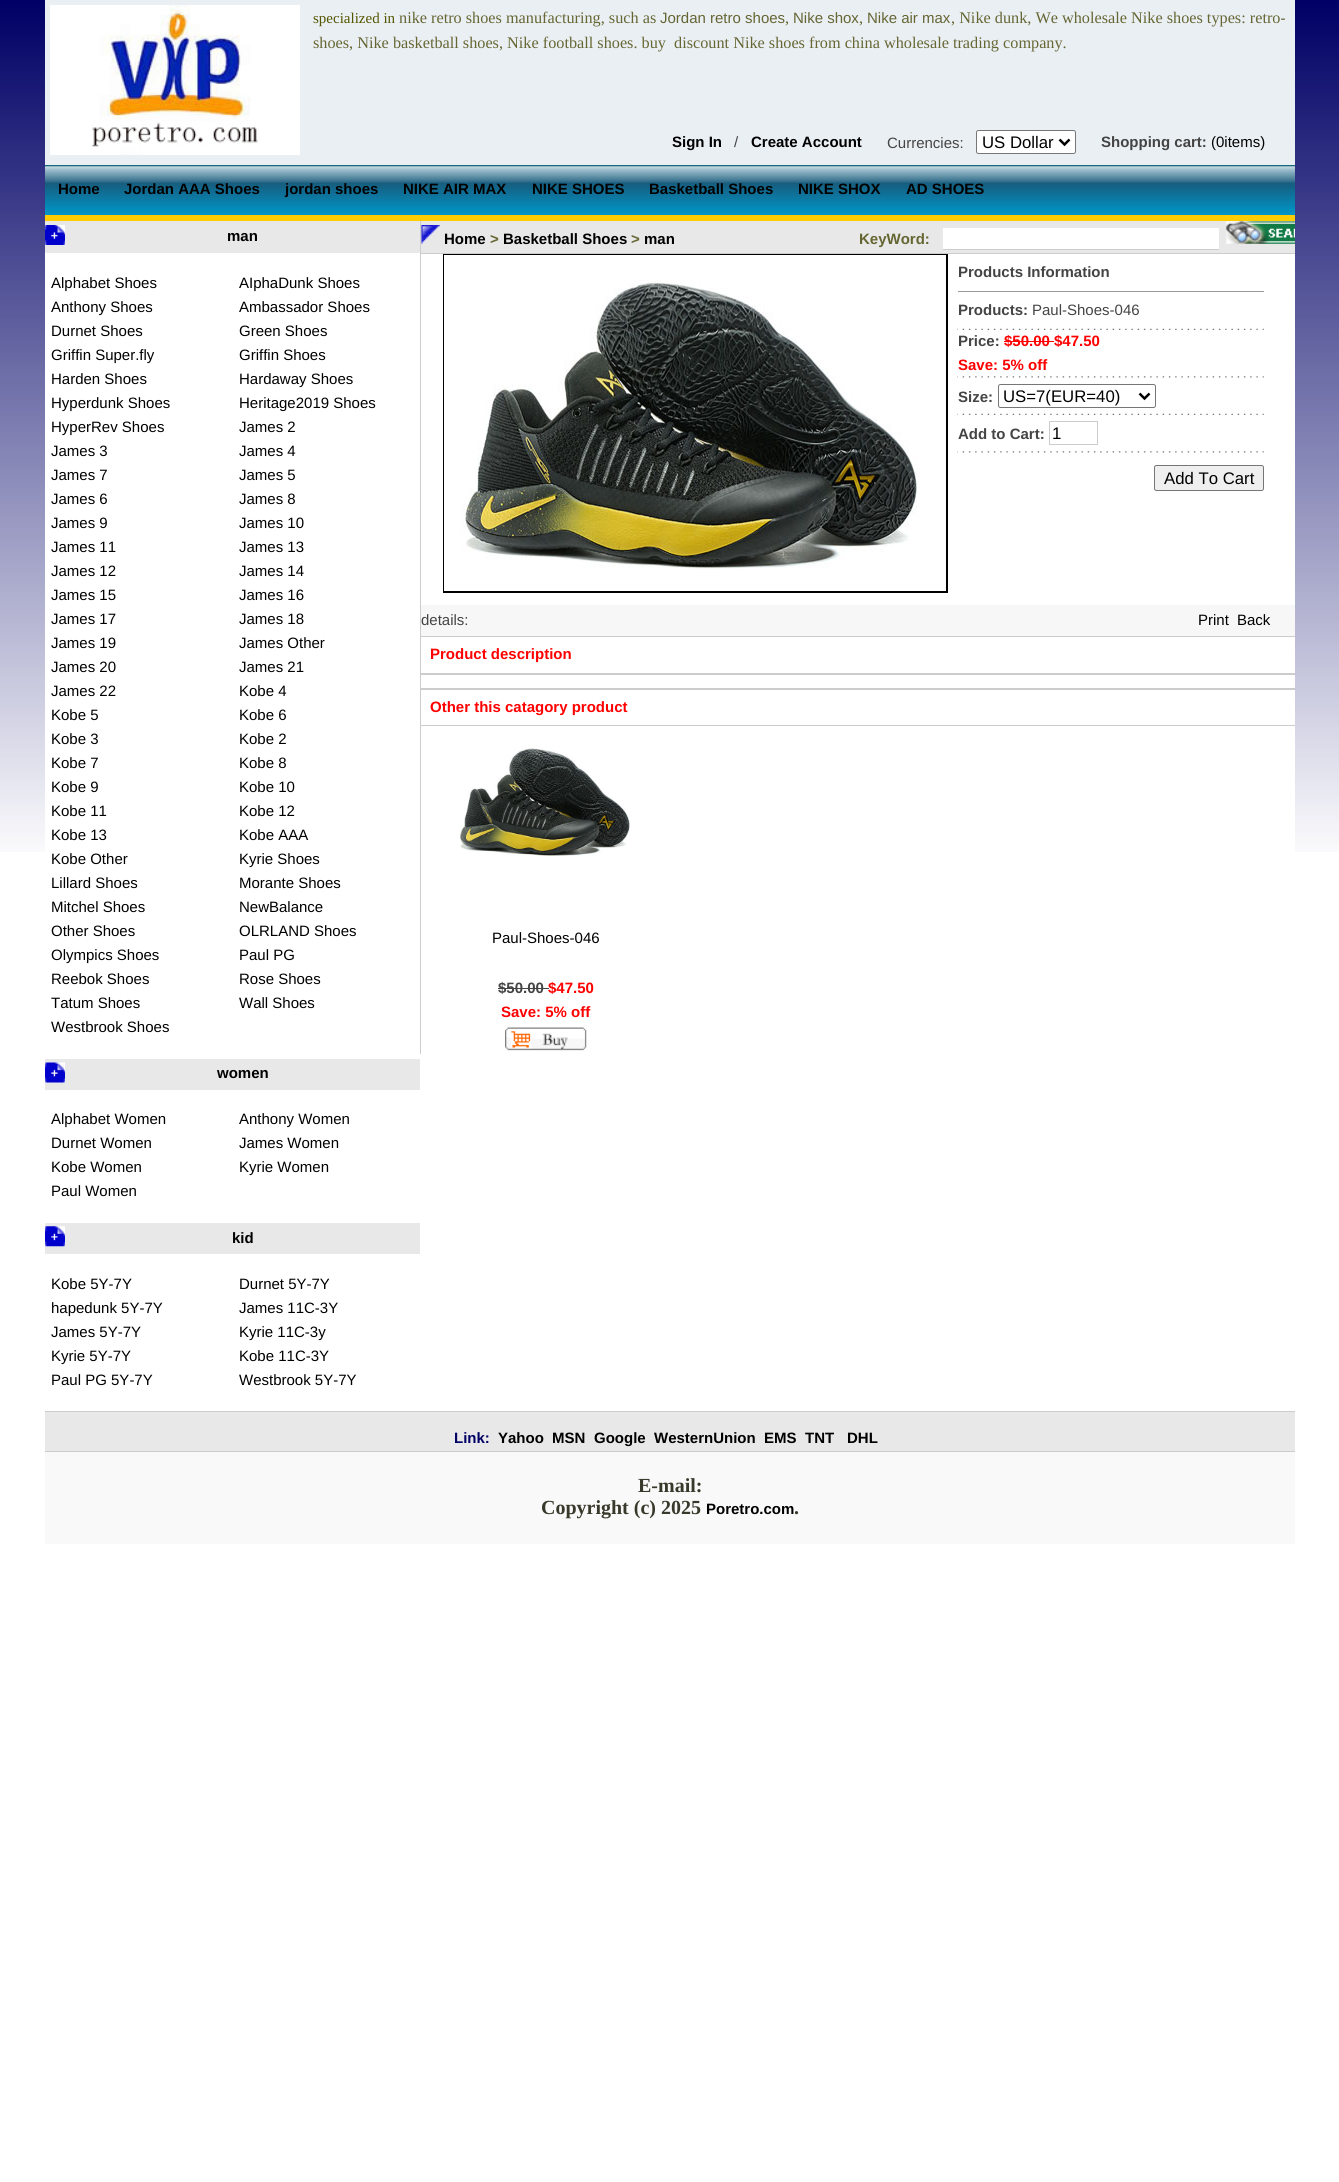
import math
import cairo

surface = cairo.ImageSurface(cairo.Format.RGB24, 1339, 2182)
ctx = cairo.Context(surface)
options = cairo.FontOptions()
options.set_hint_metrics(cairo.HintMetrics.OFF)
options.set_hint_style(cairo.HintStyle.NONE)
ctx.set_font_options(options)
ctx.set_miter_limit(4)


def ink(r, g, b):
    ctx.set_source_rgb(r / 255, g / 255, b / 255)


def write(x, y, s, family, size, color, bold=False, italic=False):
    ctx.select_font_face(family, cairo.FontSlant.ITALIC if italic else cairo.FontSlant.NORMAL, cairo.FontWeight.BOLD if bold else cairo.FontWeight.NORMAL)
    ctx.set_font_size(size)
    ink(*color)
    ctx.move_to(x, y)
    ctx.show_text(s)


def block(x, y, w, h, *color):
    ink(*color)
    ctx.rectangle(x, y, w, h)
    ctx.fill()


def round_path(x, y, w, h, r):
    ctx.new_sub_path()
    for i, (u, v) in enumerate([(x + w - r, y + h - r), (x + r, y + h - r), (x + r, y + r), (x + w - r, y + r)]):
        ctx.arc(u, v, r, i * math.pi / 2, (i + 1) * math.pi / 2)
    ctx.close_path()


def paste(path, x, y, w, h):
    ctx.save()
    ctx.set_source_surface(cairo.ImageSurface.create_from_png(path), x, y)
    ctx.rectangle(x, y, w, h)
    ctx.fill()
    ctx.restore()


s1 = dict(family="Liberation Serif", size=15, color=(85, 85, 0))
s2 = dict(family="Liberation Serif", size=16.25, color=(102, 102, 51))
s3 = dict(family="Liberation Sans", size=15, color=(102, 102, 51))
s4 = dict(family="Liberation Sans", size=15, color=(0, 0, 0), bold=True)
s5 = dict(family="Liberation Sans", size=15, color=(68, 68, 68))
s6 = dict(family="Liberation Sans", size=16.75, color=(0, 0, 0))
s7 = dict(family="Liberation Sans", size=15, color=(68, 68, 68), bold=True)
s8 = dict(family="Liberation Sans", size=15, color=(0, 0, 0))
s9 = dict(family="Liberation Sans", size=15, color=(102, 102, 51), bold=True)
s10 = dict(family="Liberation Sans", size=15, color=(255, 0, 0), bold=True)
s11 = dict(family="Liberation Sans", size=15, color=(0, 0, 102), bold=True)
s12 = dict(family="Liberation Serif", size=20, color=(57, 57, 43), bold=True)

ink(255, 255, 255)
ctx.paint()
paste("pic1.png", 0, 0, 1339, 852)
block(45, 253, 1250, 599, 255, 255, 255)
block(45, 0, 1250, 165, 234, 239, 244)
paste("pic2.png", 50, 5, 250, 150)
write(313, 23, "specialized in", **s1)
write(399, 23, "nike retro shoes manufacturing, such as", **s2)
write(660, 23, "Jordan retro shoes", **s3)
write(785, 23, ",", **s2)
write(793, 23, "Nike shox", **s3)
write(859, 23, ",", **s2)
write(867, 23, "Nike air max", **s3)
write(951, 23, ", Nike dunk, We wholesale Nike shoes types: retro-", **s2)
write(313, 48, "shoes, Nike basketball shoes, Nike football shoes. buy  discount Nike shoes from china wholesale trading company.", **s2)
write(672, 147, "Sign In", **s4)
write(734, 147, "/", **s5)
write(751, 147, "Create Account", **s4)
write(887, 148, "Currencies:", **s5)
ink(255, 255, 255)
round_path(976.5, 130.5, 99, 23, 2)
ctx.fill_preserve()
ink(118, 118, 118)
ctx.set_line_width(1)
ctx.stroke()
ctx.new_path()
ctx.move_to(1059.5, 139.5)
ctx.line_to(1064.5, 144.5)
ctx.line_to(1069.5, 139.5)
ink(0, 0, 0)
ctx.set_line_width(2.5)
ctx.stroke()
write(982, 148, "US Dollar", **s6)
write(1101, 147, "Shopping cart:", **s7)
write(1211, 147, "(0items)", **s8)
paste("pic3.png", 45, 165, 1250, 50)
write(58, 194, "Home", **s4)
write(124, 194, "Jordan AAA Shoes", **s4)
write(285, 194, "jordan shoes", **s4)
write(403, 194, "NIKE AIR MAX", **s4)
write(532, 194, "NIKE SHOES", **s4)
write(649, 194, "Basketball Shoes", **s4)
write(798, 194, "NIKE SHOX", **s4)
write(906, 194, "AD SHOES", **s4)
block(45, 215, 1250, 6, 253, 204, 3)
block(45, 221, 375, 32, 232, 232, 232)
paste("pic4.png", 45, 225, 20, 20)
write(227, 241, "man", **s4)
write(51, 288, "Alphabet Shoes", **s8)
write(239, 288, "AIphaDunk Shoes", **s8)
write(51, 312, "Anthony Shoes", **s8)
write(239, 312, "Ambassador Shoes", **s8)
write(51, 336, "Durnet Shoes", **s8)
write(239, 336, "Green Shoes", **s8)
write(51, 360, "Griffin Super.fly", **s8)
write(239, 360, "Griffin Shoes", **s8)
write(51, 384, "Harden Shoes", **s8)
write(239, 384, "Hardaway Shoes", **s8)
write(51, 408, "Hyperdunk Shoes", **s8)
write(239, 408, "Heritage2019 Shoes", **s8)
write(51, 432, "HyperRev Shoes", **s8)
write(239, 432, "James 2", **s8)
write(51, 456, "James 3", **s8)
write(239, 456, "James 4", **s8)
write(51, 480, "James 7", **s8)
write(239, 480, "James 5", **s8)
write(51, 504, "James 6", **s8)
write(239, 504, "James 8", **s8)
write(51, 528, "James 9", **s8)
write(239, 528, "James 10", **s8)
write(51, 552, "James 11", **s8)
write(239, 552, "James 13", **s8)
write(51, 576, "James 12", **s8)
write(239, 576, "James 14", **s8)
write(51, 600, "James 15", **s8)
write(239, 600, "James 16", **s8)
write(51, 624, "James 17", **s8)
write(239, 624, "James 18", **s8)
write(51, 648, "James 19", **s8)
write(239, 648, "James Other", **s8)
write(51, 672, "James 20", **s8)
write(239, 672, "James 21", **s8)
write(51, 696, "James 22", **s8)
write(239, 696, "Kobe 4", **s8)
write(51, 720, "Kobe 5", **s8)
write(239, 720, "Kobe 6", **s8)
write(51, 744, "Kobe 3", **s8)
write(239, 744, "Kobe 2", **s8)
write(51, 768, "Kobe 7", **s8)
write(239, 768, "Kobe 8", **s8)
write(51, 792, "Kobe 9", **s8)
write(239, 792, "Kobe 10", **s8)
write(51, 816, "Kobe 11", **s8)
write(239, 816, "Kobe 12", **s8)
write(51, 840, "Kobe 13", **s8)
write(239, 840, "Kobe AAA", **s8)
write(51, 864, "Kobe Other", **s8)
write(239, 864, "Kyrie Shoes", **s8)
write(51, 888, "Lillard Shoes", **s8)
write(239, 888, "Morante Shoes", **s8)
write(51, 912, "Mitchel Shoes", **s8)
write(239, 912, "NewBalance", **s8)
write(51, 936, "Other Shoes", **s8)
write(239, 936, "OLRLAND Shoes", **s8)
write(51, 960, "Olympics Shoes", **s8)
write(239, 960, "Paul PG", **s8)
write(51, 984, "Reebok Shoes", **s8)
write(239, 984, "Rose Shoes", **s8)
write(51, 1008, "Tatum Shoes", **s8)
write(239, 1008, "Wall Shoes", **s8)
write(51, 1032, "Westbrook Shoes", **s8)
block(45, 1059, 375, 31, 232, 232, 232)
paste("pic5.png", 45, 1062, 20, 21)
write(217, 1078, "women", **s4)
write(51, 1124, "Alphabet Women", **s8)
write(239, 1124, "Anthony Women", **s8)
write(51, 1148, "Durnet Women", **s8)
write(239, 1148, "James Women", **s8)
write(51, 1172, "Kobe Women", **s8)
write(239, 1172, "Kyrie Women", **s8)
write(51, 1196, "Paul Women", **s8)
block(45, 1223, 375, 31, 232, 232, 232)
paste("pic6.png", 45, 1226, 20, 21)
write(232, 1243, "kid", **s4)
write(51, 1289, "Kobe 5Y-7Y", **s8)
write(239, 1289, "Durnet 5Y-7Y", **s8)
write(51, 1313, "hapedunk 5Y-7Y", **s8)
write(239, 1313, "James 11C-3Y", **s8)
write(51, 1337, "James 5Y-7Y", **s8)
write(239, 1337, "Kyrie 11C-3y", **s8)
write(51, 1361, "Kyrie 5Y-7Y", **s8)
write(239, 1361, "Kobe 11C-3Y", **s8)
write(51, 1385, "Paul PG 5Y-7Y", **s8)
write(239, 1385, "Westbrook 5Y-7Y", **s8)
block(420, 221, 1, 833, 204, 204, 204)
block(421, 221, 874, 32, 232, 232, 232)
block(421, 253, 874, 1, 204, 204, 204)
paste("pic7.png", 421, 225, 19, 19)
write(444, 244, "Home", **s4)
write(490, 244, ">", **s9)
write(503, 244, "Basketball Shoes", **s4)
write(631, 244, ">", **s9)
write(644, 244, "man", **s4)
write(859, 244, "KeyWord:", **s9)
block(943, 228, 276, 21, 255, 255, 255)
block(943, 249, 276, 1, 204, 204, 204)
paste("pic8.png", 1226, 221, 69, 23)
block(443, 254, 505, 339, 0, 0, 0)
block(444, 255, 502, 336, 255, 255, 255)
paste("pic9.png", 461, 280, 456, 289)
write(958, 277, "Products Information", **s7)
block(958, 291, 306, 1, 153, 153, 153)
paste("pic10.png", 957, 328, 307, 2)
write(958, 315, "Products:", **s7)
write(1032, 315, "Paul-Shoes-046", **s5)
paste("pic11.png", 957, 376, 307, 2)
write(958, 346, "Price:", **s7)
write(1004, 346, "$50.00", **s10)
block(1004, 341, 50, 1, 255, 0, 0)
write(1054, 346, "$47.50", **s10)
write(958, 370, "Save: 5% off", **s10)
paste("pic10.png", 957, 413, 307, 2)
write(958, 402, "Size:", **s7)
round_path(998.5, 384.5, 157, 23, 2)
ink(118, 118, 118)
ctx.set_line_width(1)
ctx.stroke()
ctx.new_path()
ctx.move_to(1139.5, 393.5)
ctx.line_to(1144.5, 398.5)
ctx.line_to(1149.5, 393.5)
ink(0, 0, 0)
ctx.set_line_width(2.5)
ctx.stroke()
write(1003, 402, "US=7(EUR=40)", **s6)
paste("pic11.png", 957, 451, 307, 2)
write(958, 439, "Add to Cart:", **s7)
ctx.rectangle(1049.5, 421.5, 48, 23)
ink(204, 204, 204)
ctx.set_line_width(1)
ctx.stroke()
write(1052, 439, "1", **s6)
ink(239, 239, 239)
round_path(1154.5, 465.5, 109, 25, 2)
ctx.fill_preserve()
ink(118, 118, 118)
ctx.stroke()
write(1164, 484, "Add To Cart", **s6)
block(421, 605, 874, 31, 247, 247, 247)
write(421, 625, "details:", **s5)
write(1198, 625, "Print", **s8)
write(1237, 625, "Back", **s8)
block(421, 636, 874, 1, 204, 204, 204)
block(421, 673, 874, 2, 204, 204, 204)
write(430, 659, "Product description", **s10)
block(421, 688, 874, 2, 204, 204, 204)
block(421, 725, 874, 1, 204, 204, 204)
write(430, 712, "Other this catagory product", **s10)
paste("pic12.png", 460, 748, 170, 108)
write(492, 943, "Paul-Shoes-046", **s8)
write(498, 993, "$50.00", **s7)
block(498, 988, 51, 1, 68, 68, 68)
write(548, 993, "$47.50", **s10)
write(501, 1017, "Save: 5% off", **s10)
paste("pic13.png", 505, 1027, 82, 24)
block(45, 1412, 1250, 39, 232, 232, 232)
block(45, 1411, 1250, 1, 204, 204, 204)
write(454, 1443, "Link:", **s11)
write(498, 1443, "Yahoo", **s4)
write(552, 1443, "MSN", **s4)
write(594, 1443, "Google", **s4)
write(654, 1443, "WesternUnion", **s4)
write(764, 1443, "EMS", **s4)
write(805, 1443, "TNT", **s4)
write(847, 1443, "DHL", **s4)
block(45, 1452, 1250, 92, 249, 249, 249)
block(45, 1451, 1250, 1, 204, 204, 204)
write(638, 1492, "E-mail:", **s12)
write(541, 1514, "Copyright (c) 2025", **s12)
write(706, 1514, "Poretro.com", **s4)
write(794, 1514, ".", **s12)
surface.write_to_png("screenshot.png")
